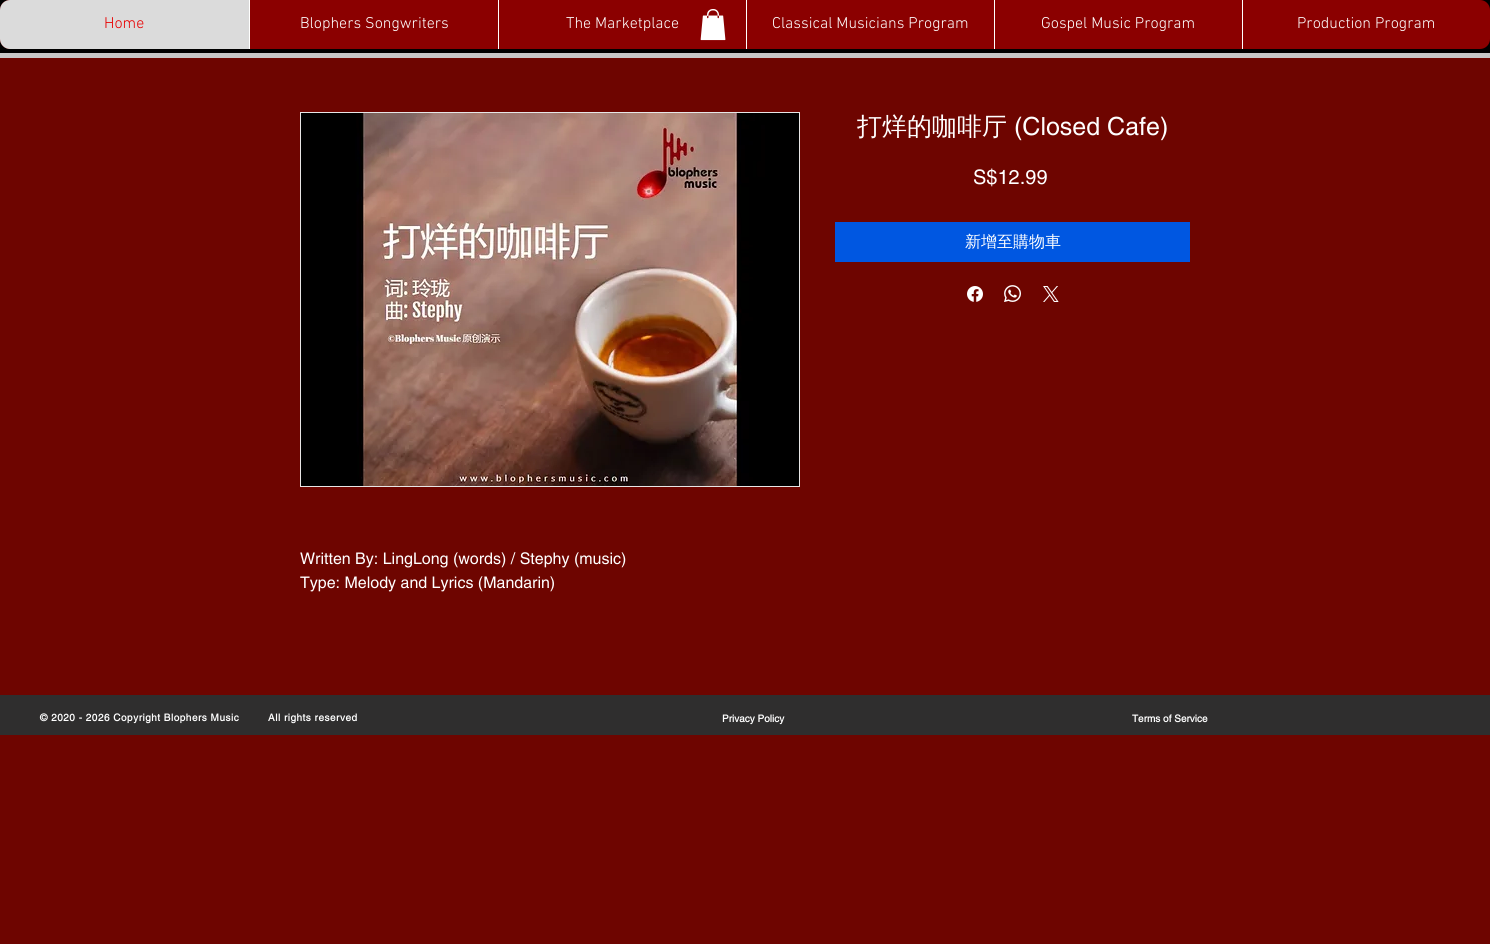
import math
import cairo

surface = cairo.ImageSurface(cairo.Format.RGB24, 1490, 944)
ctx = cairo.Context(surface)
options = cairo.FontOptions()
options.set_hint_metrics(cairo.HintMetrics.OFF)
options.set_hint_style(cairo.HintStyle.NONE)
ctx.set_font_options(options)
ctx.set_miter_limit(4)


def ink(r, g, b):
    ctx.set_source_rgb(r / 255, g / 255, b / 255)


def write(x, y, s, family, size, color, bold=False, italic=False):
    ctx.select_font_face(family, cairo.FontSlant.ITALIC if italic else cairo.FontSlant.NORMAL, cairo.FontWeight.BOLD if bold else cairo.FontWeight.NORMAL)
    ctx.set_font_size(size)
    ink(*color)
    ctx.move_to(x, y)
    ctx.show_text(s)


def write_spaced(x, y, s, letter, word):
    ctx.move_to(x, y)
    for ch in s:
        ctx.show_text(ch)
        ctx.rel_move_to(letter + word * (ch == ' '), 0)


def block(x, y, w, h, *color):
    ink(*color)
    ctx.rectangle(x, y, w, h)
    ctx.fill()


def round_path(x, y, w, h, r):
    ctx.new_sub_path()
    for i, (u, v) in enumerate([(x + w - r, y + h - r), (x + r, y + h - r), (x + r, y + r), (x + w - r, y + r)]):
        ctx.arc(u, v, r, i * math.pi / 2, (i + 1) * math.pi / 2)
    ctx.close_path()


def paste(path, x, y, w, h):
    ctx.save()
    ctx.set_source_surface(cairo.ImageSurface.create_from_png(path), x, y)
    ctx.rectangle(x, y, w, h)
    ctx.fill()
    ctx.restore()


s1 = dict(family="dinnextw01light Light", size=16, color=(232, 0, 0))
s2 = dict(family="dinnextw01light Light", size=16, color=(255, 255, 255))
s3 = dict(family="WenQuanYi Zen Hei Medium", size=25, color=(255, 255, 255))
s4 = dict(family="helvetica", size=25, color=(255, 255, 255))
s5 = dict(family="helvetica", size=20, color=(255, 255, 255))
s6 = dict(family="WenQuanYi Zen Hei Medium", size=16, color=(255, 255, 255))
s7 = dict(family="helvetica", size=16, color=(255, 255, 255))
s8 = dict(family="helvetica", size=10, color=(255, 255, 255), bold=True)

ink(110, 5, 0)
ctx.paint()
block(0, 0, 1490, 53, 0, 0, 0)
block(0, 53, 1490, 5, 199, 199, 199)
ink(139, 0, 0)
round_path(0, 0, 1490, 49, 10)
ctx.fill()
paste("pic1.png", 700, 9, 26, 32)
ink(219, 219, 219)
ctx.new_path()
ctx.move_to(10, 0)
ctx.line_to(249, 0)
ctx.line_to(249, 49)
ctx.line_to(10, 49)
ctx.curve_to(4.5, 49, 0, 44.5, 0, 39)
ctx.line_to(0, 10)
ctx.curve_to(0, 4.5, 4.5, 0, 10, 0)
ctx.close_path()
ctx.fill()
write(104, 28, "Home", **s1)
block(249, 0, 1, 49, 255, 255, 254)
write(300, 28, "Blophers Songwriters", **s2)
block(498, 0, 1, 49, 255, 255, 254)
write(566, 28, "The Marketplace", **s2)
block(746, 0, 1, 49, 255, 255, 254)
write(772, 28, "Classical Musicians Program", **s2)
block(994, 0, 1, 49, 255, 255, 254)
write(1041, 28, "Gospel Music Program", **s2)
block(1242, 0, 1, 49, 255, 255, 254)
write(1297, 28, "Production Program", **s2)
write(857, 135, "打烊的咖啡厅", **s3)
write(1014, 135, "(Closed Cafe)", **s4)
write(973, 184, "S$12.99", **s5)
block(835, 222, 355, 40, 0, 87, 225)
write(965, 247, "新增至購物車", **s6)
paste("pic2.png", 967, 286, 16, 16)
paste("pic3.png", 1004, 285, 17, 17)
paste("pic4.png", 1043, 286, 16, 16)
ctx.rectangle(300.5, 112.5, 499, 374)
ink(232, 230, 230)
ctx.set_line_width(1)
ctx.stroke()
paste("pic5.png", 301, 113, 498, 373)
write(300, 564, "Written By: LingLong (words) / Stephy (music)", **s7)
write(300, 588, "Type: Melody and Lyrics (Mandarin)", **s7)
block(0, 695, 1490, 40, 47, 46, 46)
ctx.select_font_face("helvetica", cairo.FontSlant.NORMAL, cairo.FontWeight.BOLD)
ctx.set_font_size(10)
ink(255, 255, 255)
write_spaced(40, 721, "© 2020 - 2026 Copyright Blophers Music", 0.5, 0)
write_spaced(268, 721, "All rights reserved", 0.5, 0)
write(722, 722, "Privacy Policy", **s8)
write(1132, 722, "Terms of Service", **s8)
surface.write_to_png("screenshot.png")
